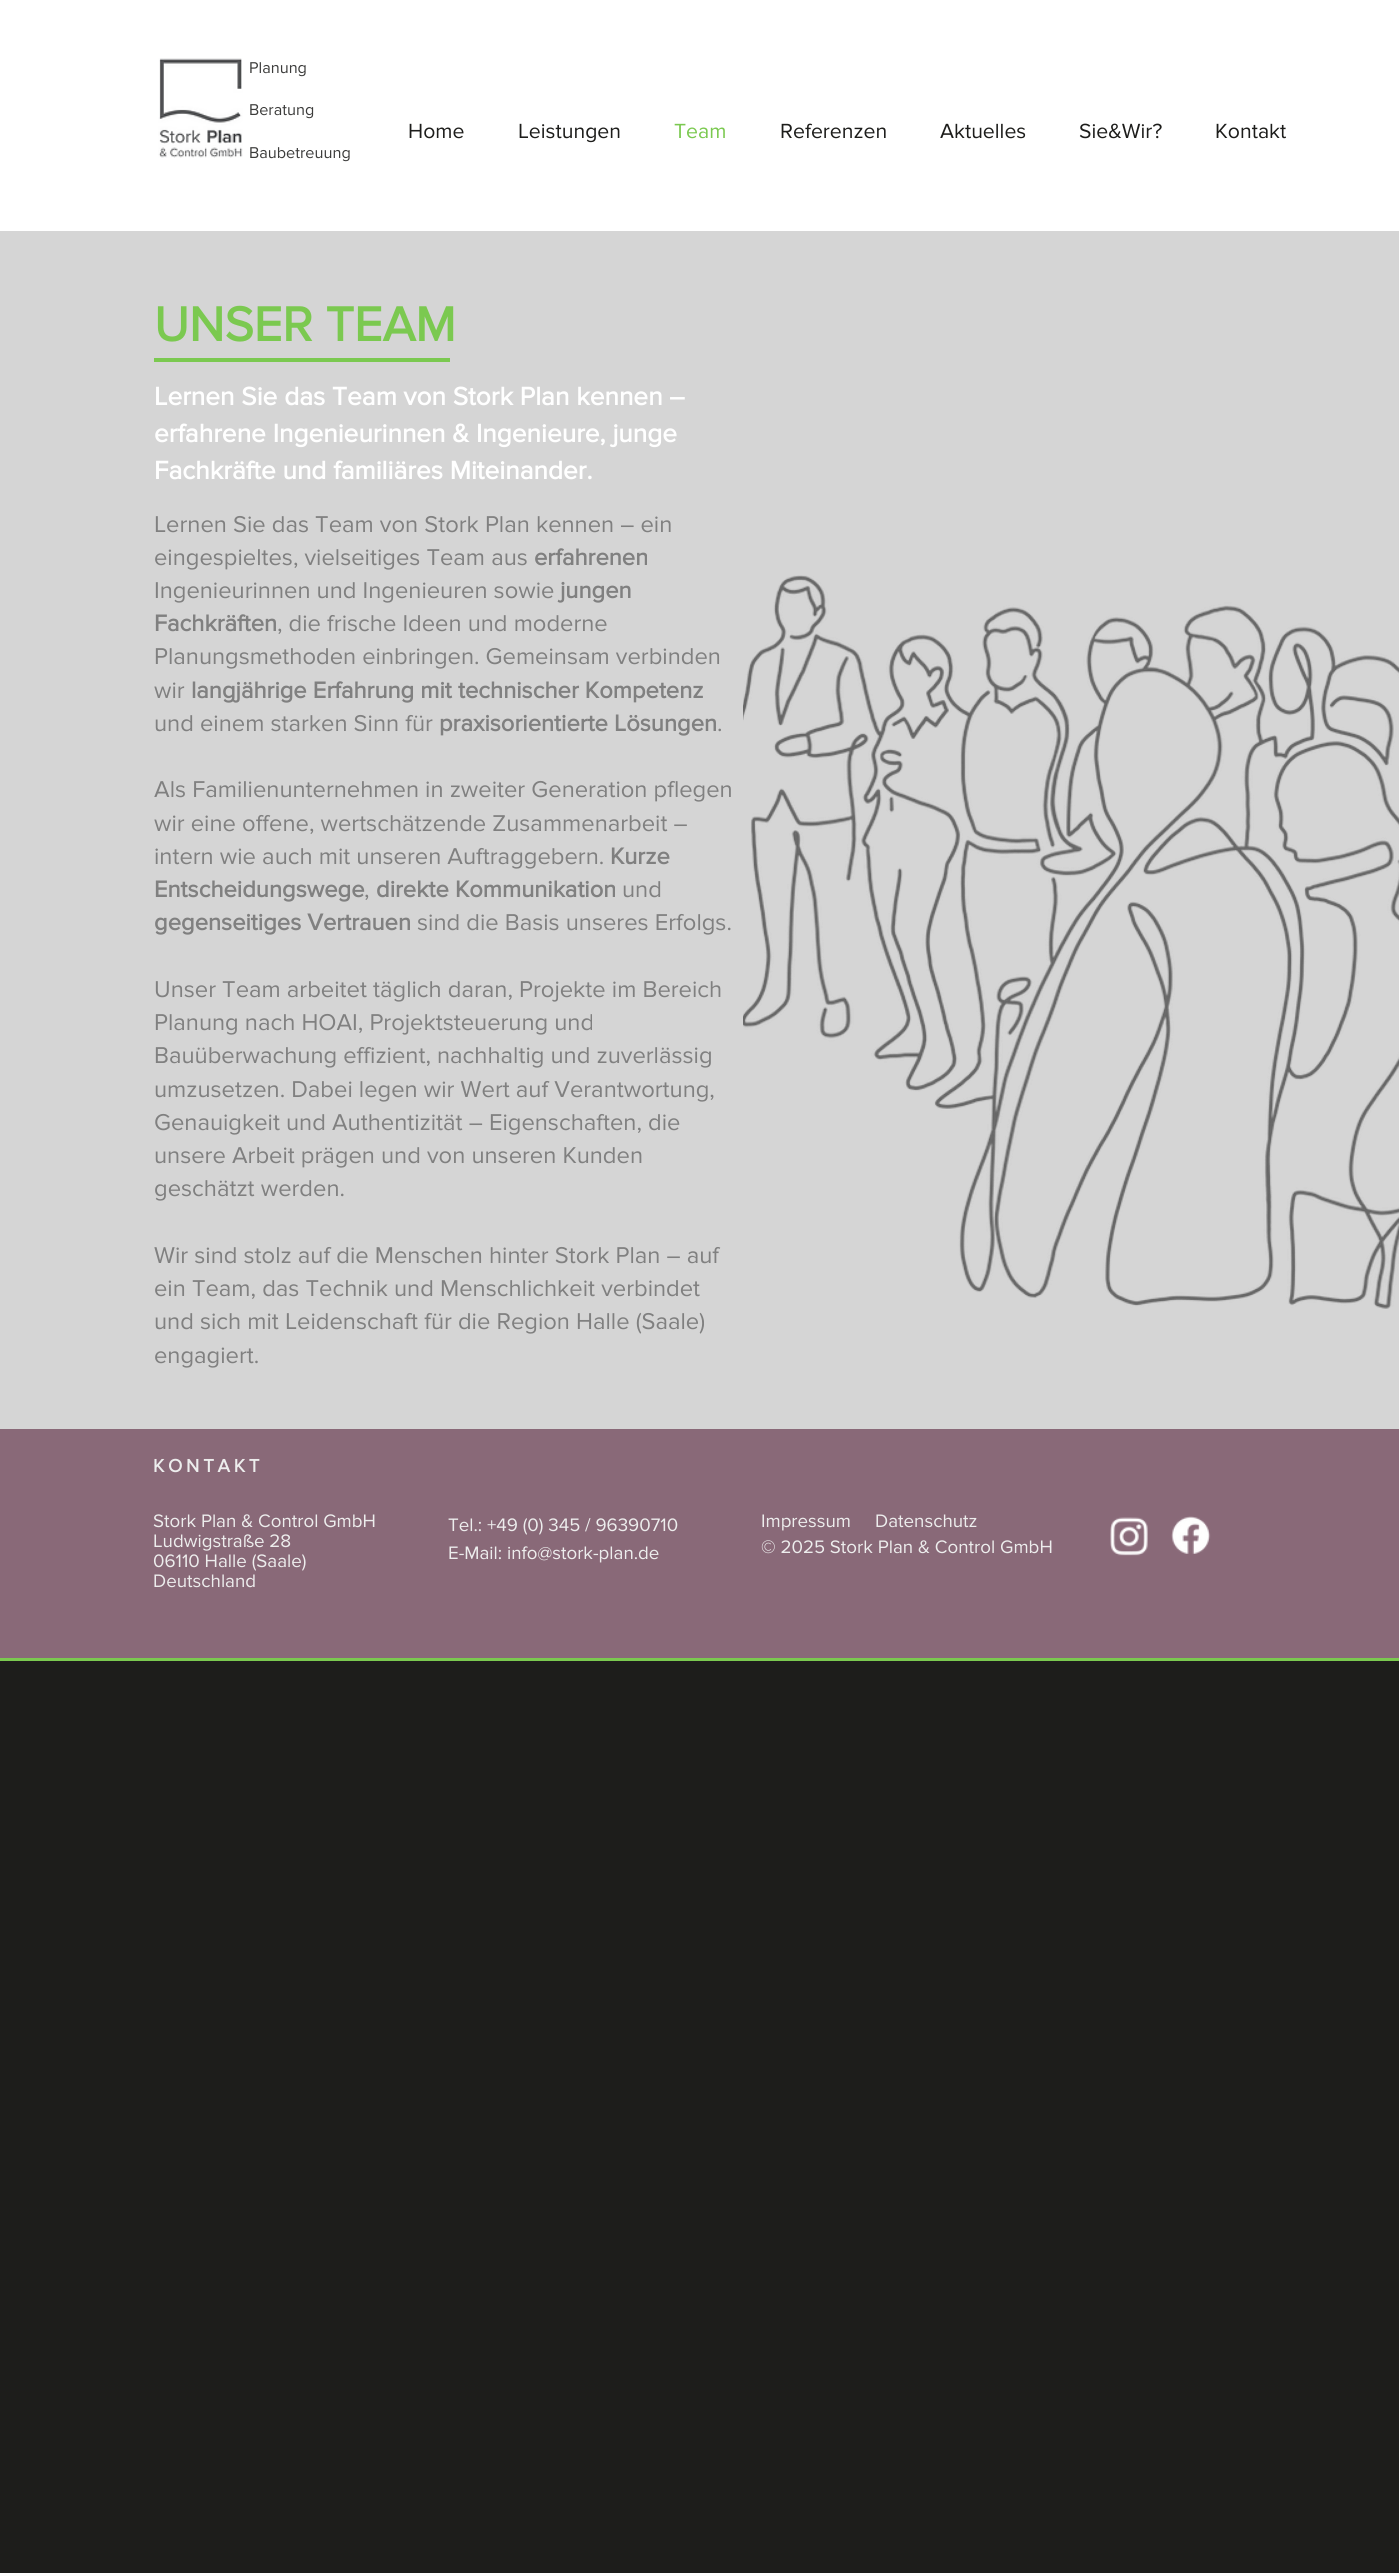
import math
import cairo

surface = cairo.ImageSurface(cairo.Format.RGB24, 1399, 2573)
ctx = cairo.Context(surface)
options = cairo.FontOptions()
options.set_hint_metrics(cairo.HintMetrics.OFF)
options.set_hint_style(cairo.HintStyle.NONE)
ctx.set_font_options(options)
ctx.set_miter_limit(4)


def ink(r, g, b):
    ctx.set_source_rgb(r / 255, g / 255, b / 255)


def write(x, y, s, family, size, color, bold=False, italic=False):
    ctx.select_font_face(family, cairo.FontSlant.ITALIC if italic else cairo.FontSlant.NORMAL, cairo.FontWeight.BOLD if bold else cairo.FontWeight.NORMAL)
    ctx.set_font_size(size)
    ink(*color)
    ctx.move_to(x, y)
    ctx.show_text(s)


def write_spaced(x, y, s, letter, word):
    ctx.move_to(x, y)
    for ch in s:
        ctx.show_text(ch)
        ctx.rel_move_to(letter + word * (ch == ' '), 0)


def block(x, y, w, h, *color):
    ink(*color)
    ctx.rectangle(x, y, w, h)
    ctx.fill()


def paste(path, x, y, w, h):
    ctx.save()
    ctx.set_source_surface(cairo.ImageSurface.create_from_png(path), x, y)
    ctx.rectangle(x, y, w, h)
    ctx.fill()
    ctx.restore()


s1 = dict(family="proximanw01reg", size=16.25, color=(60, 60, 59))
s2 = dict(family="proximanw01reg", size=21.25, color=(29, 29, 27))
s3 = dict(family="proximanw01reg", size=21.25, color=(123, 201, 80))
s4 = dict(family="proximanw01reg", size=50, color=(123, 201, 80), bold=True)
s5 = dict(family="proximanw01reg", size=26.25, color=(255, 255, 255), bold=True)
s6 = dict(family="proximanw01reg", size=23.75, color=(128, 128, 128))
s7 = dict(family="proximanw01reg", size=23.75, color=(128, 128, 128), bold=True)
s8 = dict(family="proximanw01reg", size=18.75, color=(237, 237, 237))

ink(29, 29, 27)
ctx.paint()
block(0, 0, 1399, 231, 255, 255, 255)
paste("pic1.png", 158, 58, 85, 100)
write(249, 73, "Planung", **s1)
write(249, 115, "Beratung", **s1)
write(249, 158, "Baubetreuung", **s1)
write(408, 138, "Home", **s2)
write(518, 138, "Leistungen", **s2)
write(674, 138, "Team", **s3)
write(780, 138, "Referenzen", **s2)
write(940, 138, "Aktuelles", **s2)
write(1079, 138, "Sie&Wir?", **s2)
write(1215, 138, "Kontakt", **s2)
block(0, 231, 1399, 1198, 213, 213, 213)
write(154, 341, "UNSER TEAM", **s4)
block(154, 358, 296, 4, 123, 201, 80)
write(154, 405, "Lernen Sie das Team von Stork Plan kennen –", **s5)
write(154, 442, "erfahrene Ingenieurinnen & Ingenieure, junge", **s5)
write(154, 479, "Fachkräfte und familiäres Miteinander.", **s5)
write(154, 532, "Lernen Sie das Team von Stork Plan kennen – ein", **s6)
write(154, 565, "eingespieltes, vielseitiges Team aus", **s6)
write(534, 565, "erfahrenen", **s7)
write(154, 598, "Ingenieurinnen und Ingenieuren sowie", **s6)
write(560, 598, "jungen", **s7)
write(154, 631, "Fachkräften", **s7)
write(277, 631, ", die frische Ideen und moderne", **s6)
write(154, 664, "Planungsmethoden einbringen. Gemeinsam verbinden", **s6)
write(154, 698, "wir", **s6)
write(191, 698, "langjährige Erfahrung mit technischer Kompetenz", **s7)
write(154, 731, "und einem starken Sinn für", **s6)
write(439, 731, "praxisorientierte Lösungen", **s7)
write(717, 731, ".", **s6)
write(154, 797, "Als Familienunternehmen in zweiter Generation pflegen", **s6)
write(154, 831, "wir eine offene, wertschätzende Zusammenarbeit –", **s6)
write(154, 864, "intern wie auch mit unseren Auftraggebern.", **s6)
write(610, 864, "Kurze", **s7)
write(154, 897, "Entscheidungswege", **s7)
write(364, 897, ",", **s6)
write(376, 897, "direkte Kommunikation", **s7)
write(622, 897, "und", **s6)
write(154, 930, "gegenseitiges Vertrauen", **s7)
write(417, 930, "sind die Basis unseres Erfolgs.", **s6)
write(154, 997, "Unser Team arbeitet täglich daran, Projekte im Bereich", **s6)
write(154, 1030, "Planung nach HOAI, Projektsteuerung und", **s6)
write(154, 1063, "Bauüberwachung effizient, nachhaltig und zuverlässig", **s6)
write(154, 1097, "umzusetzen. Dabei legen wir Wert auf Verantwortung,", **s6)
write(154, 1130, "Genauigkeit und Authentizität – Eigenschaften, die", **s6)
write(154, 1163, "unsere Arbeit prägen und von unseren Kunden", **s6)
write(154, 1196, "geschätzt werden.", **s6)
write(154, 1263, "Wir sind stolz auf die Menschen hinter Stork Plan – auf", **s6)
write(154, 1296, "ein Team, das Technik und Menschlichkeit verbindet", **s6)
write(154, 1329, "und sich mit Leidenschaft für die Region Halle (Saale)", **s6)
write(154, 1363, "engagiert.", **s6)
paste("pic2.png", 743, 575, 656, 734)
block(0, 1429, 1399, 229, 137, 105, 120)
ctx.select_font_face("proximanw01reg", cairo.FontSlant.NORMAL, cairo.FontWeight.BOLD)
ctx.set_font_size(18.75)
ink(237, 237, 237)
write_spaced(153, 1472, "KONTAKT", 3.75, 0)
write(153, 1527, "Stork Plan & Control GmbH", **s8)
write(153, 1547, "Ludwigstraße 28", **s8)
write(153, 1567, "06110 Halle (Saale)", **s8)
write(153, 1587, "Deutschland", **s8)
write(448, 1531, "Tel.: +49 (0) 345 / 96390710", **s8)
write(448, 1559, "E-Mail: info@stork-plan.de", **s8)
write(761, 1527, "Impressum", **s8)
write(875, 1527, "Datenschutz", **s8)
paste("pic3.png", 1110, 1517, 38, 39)
paste("pic4.png", 1171, 1516, 40, 38)
write(761, 1553, "© 2025 Stork Plan & Control GmbH", **s8)
block(0, 1658, 1399, 3, 123, 201, 80)
surface.write_to_png("screenshot.png")
